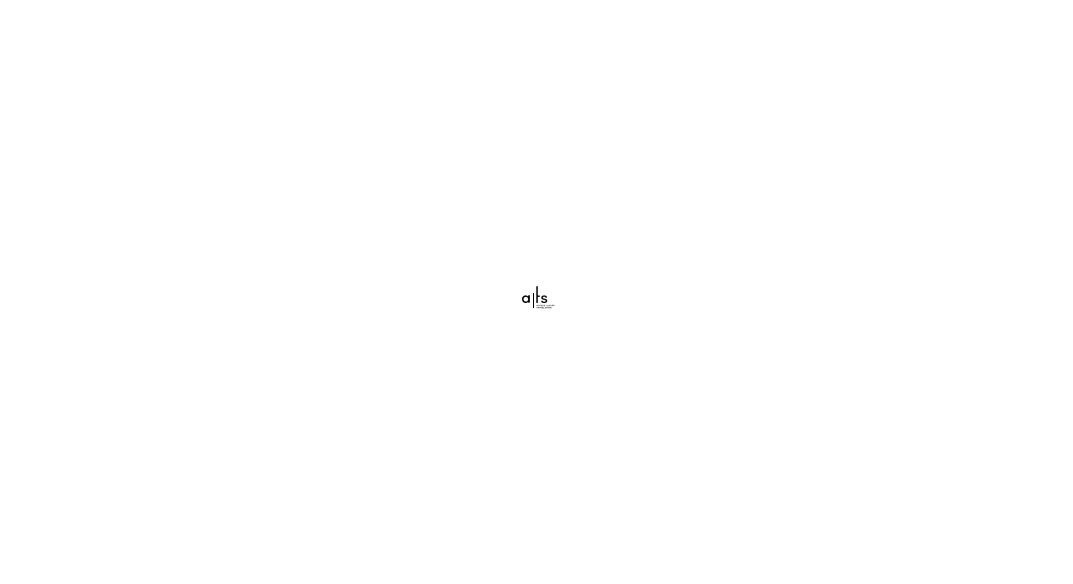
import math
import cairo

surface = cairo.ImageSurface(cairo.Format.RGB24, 1073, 584)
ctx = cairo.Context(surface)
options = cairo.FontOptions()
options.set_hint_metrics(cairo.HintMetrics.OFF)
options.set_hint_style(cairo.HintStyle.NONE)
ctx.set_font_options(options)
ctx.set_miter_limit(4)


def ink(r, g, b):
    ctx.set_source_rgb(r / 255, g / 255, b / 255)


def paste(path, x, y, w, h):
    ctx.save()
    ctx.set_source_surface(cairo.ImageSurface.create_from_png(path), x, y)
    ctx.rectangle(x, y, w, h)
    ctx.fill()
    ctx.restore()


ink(255, 255, 255)
ctx.paint()
paste("pic1.png", 522, 286, 33, 23)
surface.write_to_png("screenshot.png")
